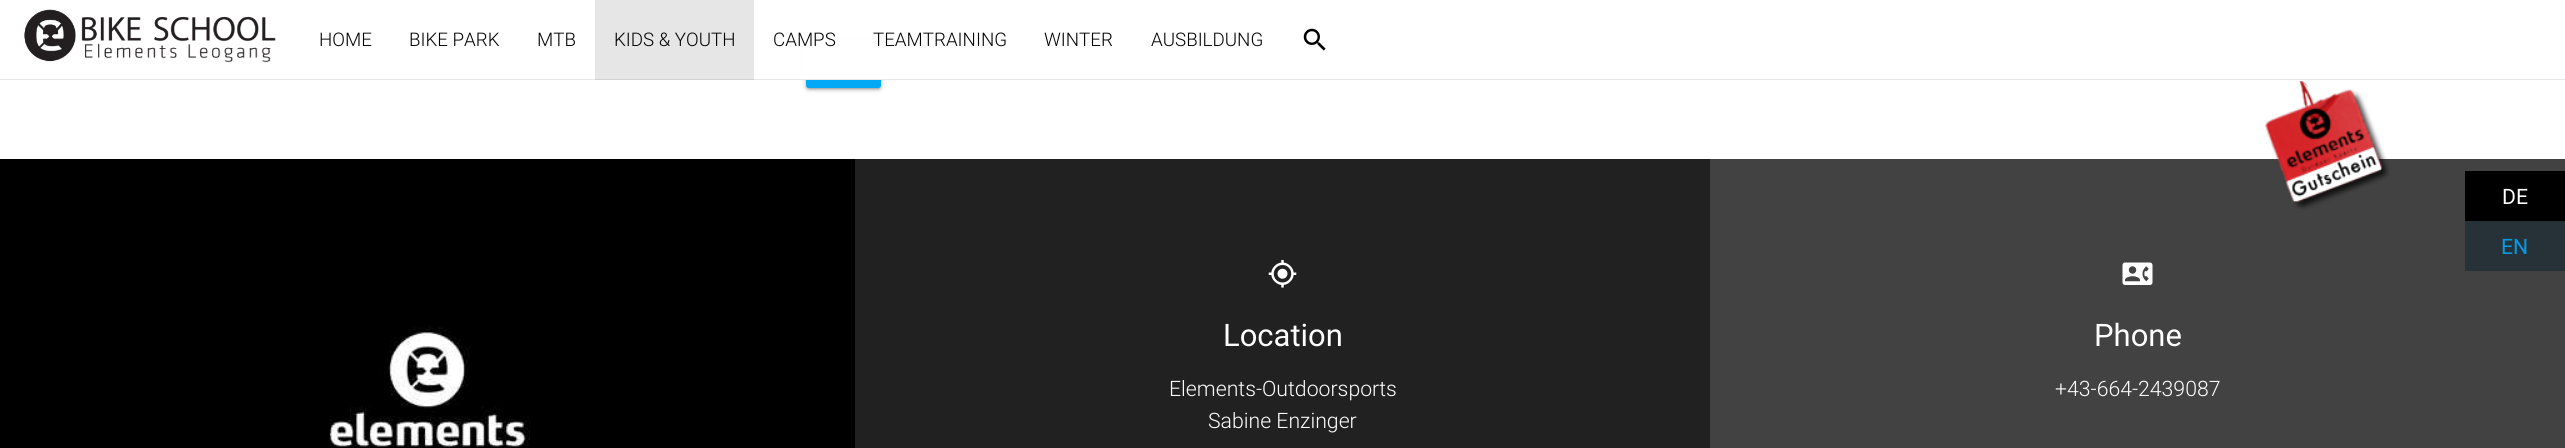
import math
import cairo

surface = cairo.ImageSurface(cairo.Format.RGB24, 2565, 448)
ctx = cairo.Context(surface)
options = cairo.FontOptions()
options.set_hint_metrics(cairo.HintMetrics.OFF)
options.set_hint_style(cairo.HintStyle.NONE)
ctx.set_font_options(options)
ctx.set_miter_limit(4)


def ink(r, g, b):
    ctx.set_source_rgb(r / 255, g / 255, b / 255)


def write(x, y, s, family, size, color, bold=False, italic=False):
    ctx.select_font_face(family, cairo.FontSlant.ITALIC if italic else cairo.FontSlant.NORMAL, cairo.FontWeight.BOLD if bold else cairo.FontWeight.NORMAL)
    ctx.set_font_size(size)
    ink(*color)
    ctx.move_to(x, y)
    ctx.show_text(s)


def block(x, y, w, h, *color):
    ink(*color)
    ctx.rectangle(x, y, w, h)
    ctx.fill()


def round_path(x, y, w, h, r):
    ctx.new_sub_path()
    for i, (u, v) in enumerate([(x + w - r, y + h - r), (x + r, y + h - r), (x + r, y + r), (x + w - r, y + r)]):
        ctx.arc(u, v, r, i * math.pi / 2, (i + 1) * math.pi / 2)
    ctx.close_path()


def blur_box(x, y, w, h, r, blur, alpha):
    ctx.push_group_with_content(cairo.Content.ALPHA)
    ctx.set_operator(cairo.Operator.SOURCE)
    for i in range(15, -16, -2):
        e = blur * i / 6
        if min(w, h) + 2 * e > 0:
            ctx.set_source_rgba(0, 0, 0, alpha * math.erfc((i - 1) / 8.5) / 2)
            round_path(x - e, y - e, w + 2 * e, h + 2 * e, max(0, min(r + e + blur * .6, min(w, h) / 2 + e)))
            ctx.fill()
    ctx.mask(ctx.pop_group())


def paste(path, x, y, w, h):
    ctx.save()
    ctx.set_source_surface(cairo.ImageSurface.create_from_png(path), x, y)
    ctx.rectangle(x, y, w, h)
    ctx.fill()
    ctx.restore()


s1 = dict(family="Roboto Light", size=18.75, color=(0, 0, 0))
s2 = dict(family="Roboto", size=21.25, color=(255, 255, 255))
s3 = dict(family="Roboto", size=21.25, color=(3, 155, 229))
s4 = dict(family="Roboto", size=31, color=(255, 255, 255))
s5 = dict(family="Roboto Light", size=21.25, color=(255, 255, 255))

ink(255, 255, 255)
ctx.paint()
ink(0, 0, 0)
blur_box(806, 44, 75, 45, 2.5, 3, 0.2)
blur_box(809, 49, 70, 40, 0, 0.5, 0.12)
blur_box(806, 45, 75, 45, 2.5, 1, 0.14)
ink(3, 169, 244)
round_path(806, 43, 75, 45, 2.5)
ctx.fill()
block(801, 39, 85, 40, 255, 255, 255)
block(0, 79, 2565, 1, 232, 232, 232)
paste("pic1.png", 24, 9, 252, 54)
write(319, 46, "HOME", **s1)
write(409, 46, "BIKE PARK", **s1)
write(537, 46, "MTB", **s1)
ctx.set_source_rgba(0, 0, 0, 0.1)
ctx.rectangle(595, 0, 159, 80)
ctx.fill()
write(614, 46, "KIDS & YOUTH", **s1)
write(773, 46, "CAMPS", **s1)
write(873, 46, "TEAMTRAINING", **s1)
write(1044, 46, "WINTER", **s1)
write(1151, 46, "AUSBILDUNG", **s1)
paste("pic2.png", 1303, 28, 23, 23)
block(1710, 159, 855, 289, 66, 66, 66)
paste("pic3.png", 2265, 81, 125, 129)
block(2465, 171, 100, 50, 0, 0, 0)
write(2502, 204, "DE", **s2)
block(2465, 221, 100, 50, 38, 50, 56)
write(2501, 254, "EN", **s3)
block(0, 159, 855, 289, 0, 0, 0)
paste("pic4.png", 329, 326, 201, 122)
block(855, 159, 855, 289, 33, 33, 33)
paste("pic5.png", 1268, 260, 29, 28)
write(1223, 346, "Location", **s4)
write(1169, 396, "Elements-Outdoorsports", **s5)
write(1208, 428, "Sabine Enzinger", **s5)
paste("pic6.png", 2122, 262, 31, 23)
write(2094, 346, "Phone", **s4)
write(2055, 396, "+43-664-2439087", **s5)
surface.write_to_png("screenshot.png")
